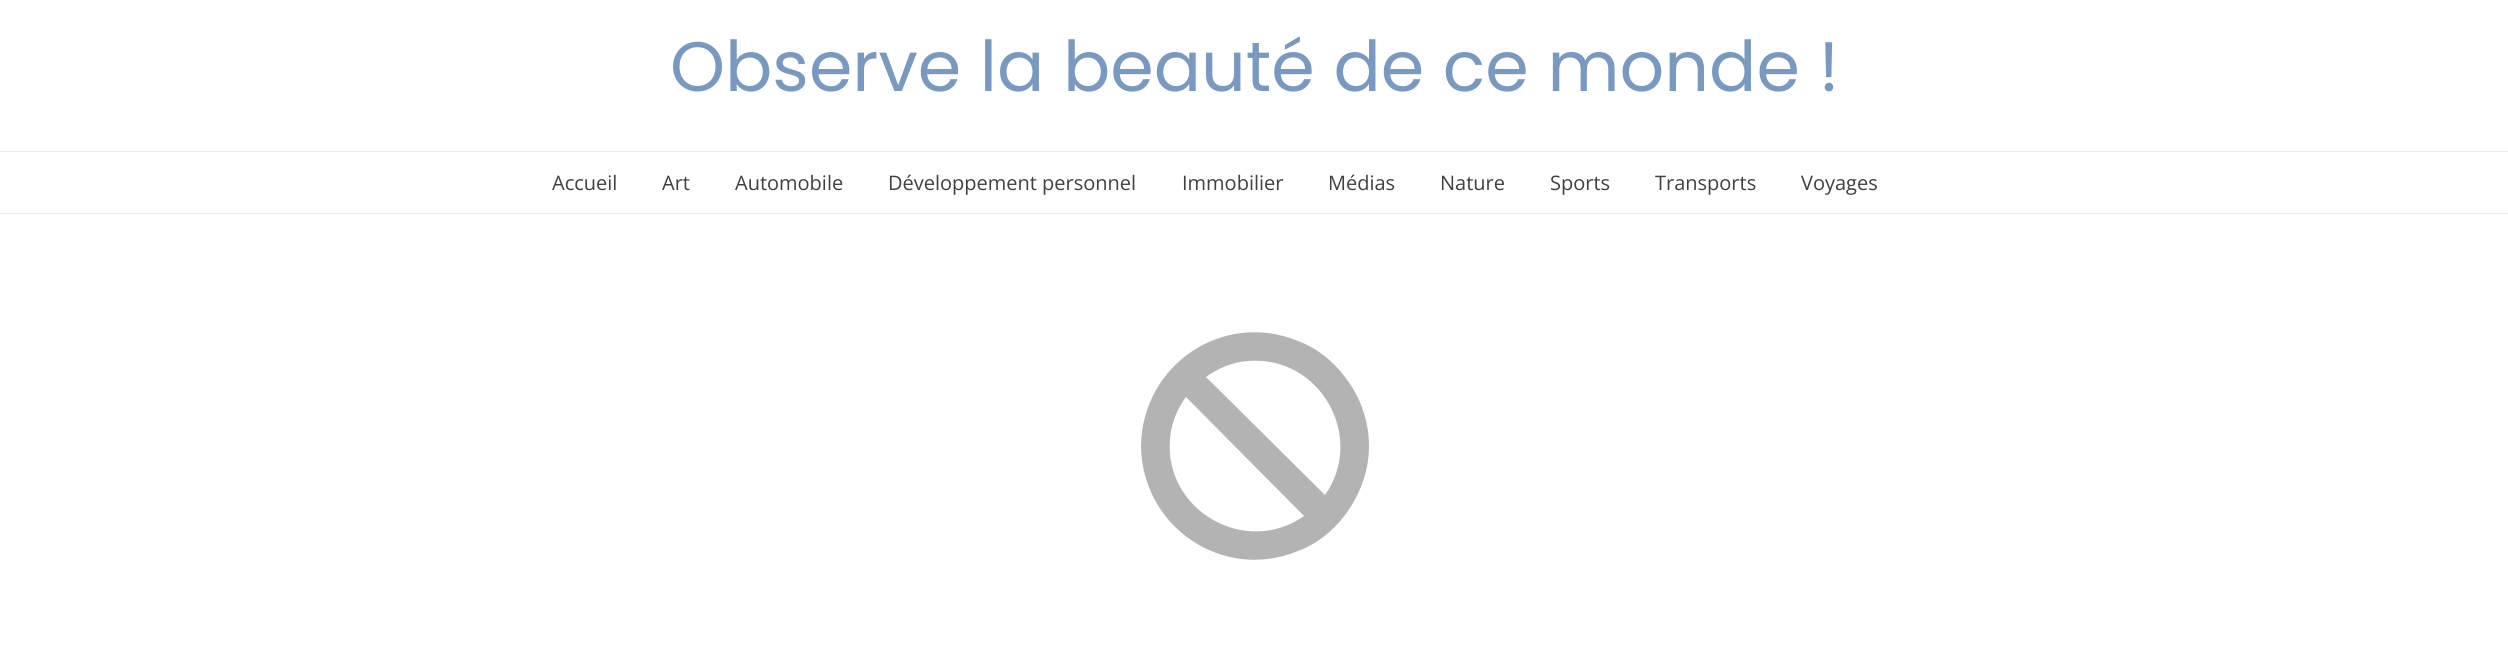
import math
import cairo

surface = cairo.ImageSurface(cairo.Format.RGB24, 2508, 659)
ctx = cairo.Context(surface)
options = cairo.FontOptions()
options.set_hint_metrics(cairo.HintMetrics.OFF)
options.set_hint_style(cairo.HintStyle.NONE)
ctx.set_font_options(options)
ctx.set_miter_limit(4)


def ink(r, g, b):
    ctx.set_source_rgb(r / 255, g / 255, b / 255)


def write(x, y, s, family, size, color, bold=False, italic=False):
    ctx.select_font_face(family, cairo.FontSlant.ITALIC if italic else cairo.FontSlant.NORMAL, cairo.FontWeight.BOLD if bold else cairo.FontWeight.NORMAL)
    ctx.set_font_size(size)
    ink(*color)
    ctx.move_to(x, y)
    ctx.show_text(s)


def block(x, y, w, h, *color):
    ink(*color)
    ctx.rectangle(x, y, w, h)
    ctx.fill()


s1 = dict(family="Poppins", size=70, color=(121, 153, 193))
s2 = dict(family="Open Sans", size=20, color=(64, 64, 64))

ink(255, 255, 255)
ctx.paint()
ink(235, 235, 235)
ctx.new_path()
ctx.move_to(0, 212)
ctx.line_to(0, 214)
ctx.line_to(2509, 214)
ctx.line_to(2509, 1)
ctx.line_to(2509, 212)
ctx.close_path()
ctx.fill()
block(0, 212, 2508, 1, 255, 255, 255)
write(670, 91, "Observe la beauté de ce monde !", **s1)
ink(235, 235, 235)
ctx.new_path()
ctx.move_to(0, 151)
ctx.line_to(0, 152)
ctx.line_to(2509, 152)
ctx.line_to(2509, 211)
ctx.line_to(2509, 151)
ctx.close_path()
ctx.fill()
write(552, 190, "Accueil", **s2)
write(662, 190, "Art", **s2)
write(735, 190, "Automobile", **s2)
write(888, 190, "Développement personnel", **s2)
write(1182, 190, "Immobilier", **s2)
write(1328, 190, "Médias", **s2)
write(1440, 190, "Nature", **s2)
write(1550, 190, "Sports", **s2)
write(1655, 190, "Transports", **s2)
write(1801, 190, "Voyages", **s2)
ink(179, 179, 179)
ctx.new_path()
ctx.move_to(1304, 516)
ctx.line_to(1186, 397)
ctx.curve_to(1177, 409, 1171, 424, 1170, 439)
ctx.curve_to(1164, 511, 1246, 557, 1304, 516)
ctx.close_path()
ctx.move_to(1325, 495)
ctx.curve_to(1366, 437, 1320, 355, 1248, 361)
ctx.curve_to(1233, 362, 1218, 368, 1206, 377)
ctx.close_path()
ctx.move_to(1141, 446)
ctx.curve_to(1142, 365, 1223, 310, 1298, 341)
ctx.curve_to(1317, 348, 1333, 361, 1345, 377)
ctx.curve_to(1360, 396, 1369, 421, 1369, 446)
ctx.curve_to(1369, 471, 1360, 495, 1345, 515)
ctx.curve_to(1333, 531, 1317, 544, 1298, 551)
ctx.curve_to(1223, 582, 1142, 527, 1141, 446)
ctx.close_path()
ctx.fill()
surface.write_to_png("screenshot.png")
